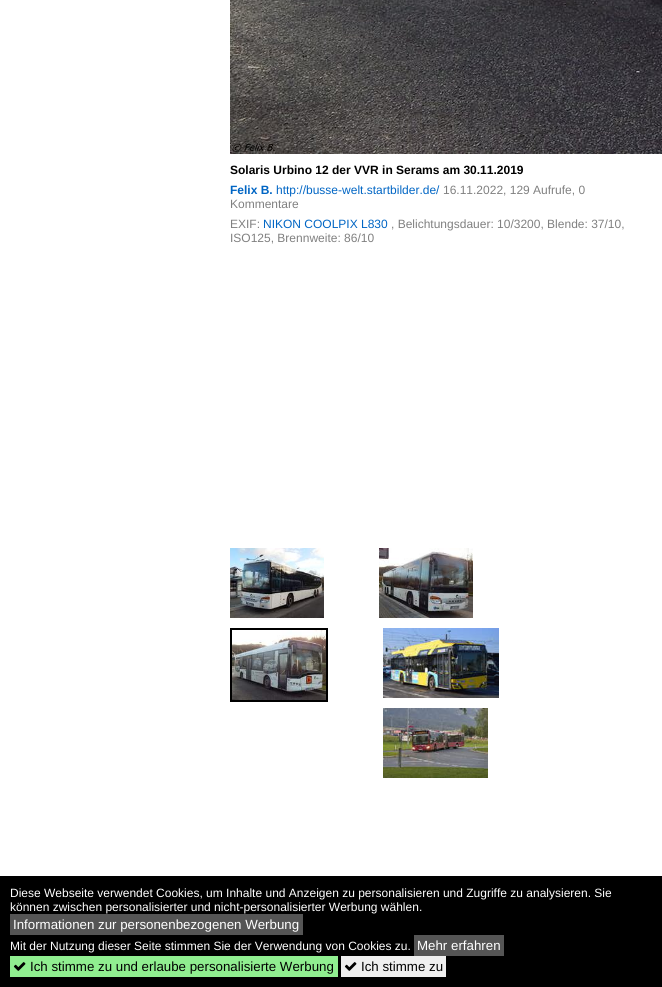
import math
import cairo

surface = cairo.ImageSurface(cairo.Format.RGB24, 662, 987)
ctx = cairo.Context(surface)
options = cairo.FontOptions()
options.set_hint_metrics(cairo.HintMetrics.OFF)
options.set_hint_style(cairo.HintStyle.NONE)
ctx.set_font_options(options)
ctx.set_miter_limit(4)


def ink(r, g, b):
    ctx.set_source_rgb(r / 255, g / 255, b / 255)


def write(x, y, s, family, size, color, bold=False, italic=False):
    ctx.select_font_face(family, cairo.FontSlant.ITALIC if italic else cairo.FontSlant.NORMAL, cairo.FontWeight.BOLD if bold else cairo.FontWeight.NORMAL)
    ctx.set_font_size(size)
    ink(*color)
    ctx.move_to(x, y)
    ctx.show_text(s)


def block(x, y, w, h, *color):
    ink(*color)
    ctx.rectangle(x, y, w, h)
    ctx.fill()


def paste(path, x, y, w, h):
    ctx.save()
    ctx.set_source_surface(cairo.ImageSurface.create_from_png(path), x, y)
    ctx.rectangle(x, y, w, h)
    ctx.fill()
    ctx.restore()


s1 = dict(family="Liberation Sans", size=12, color=(0, 0, 0), bold=True)
s2 = dict(family="Liberation Sans", size=12, color=(0, 101, 196), bold=True)
s3 = dict(family="Liberation Sans", size=12, color=(0, 101, 196))
s4 = dict(family="Liberation Sans", size=12, color=(128, 128, 128))
s5 = dict(family="Liberation Sans", size=12, color=(255, 255, 255))
s6 = dict(family="Liberation Sans", size=13.3, color=(255, 255, 255))
s7 = dict(family="Liberation Sans", size=13.3, color=(0, 0, 0))

ink(255, 255, 255)
ctx.paint()
paste("pic1.png", 230, 0, 432, 154)
write(230, 174, "Solaris Urbino 12 der VVR in Serams am 30.11.2019", **s1)
write(230, 194, "Felix B.", **s2)
write(276, 194, "http://busse-welt.startbilder.de/", **s3)
write(443, 194, "16.11.2022, 129 Aufrufe, 0", **s4)
write(230, 208, "Kommentare", **s4)
write(230, 228, "EXIF:", **s4)
write(263, 228, "NIKON COOLPIX L830", **s3)
write(391, 228, ", Belichtungsdauer: 10/3200, Blende: 37/10,", **s4)
write(230, 242, "ISO125, Brennweite: 86/10", **s4)
paste("pic2.png", 230, 548, 94, 70)
paste("pic3.png", 379, 548, 94, 70)
ctx.rectangle(231, 629, 96, 72)
ink(0, 0, 0)
ctx.stroke()
paste("pic4.png", 232, 630, 94, 70)
paste("pic5.png", 383, 628, 116, 70)
paste("pic6.png", 383, 708, 105, 70)
block(0, 876, 662, 111, 0, 0, 0)
write(10, 897, "Diese Webseite verwendet Cookies, um Inhalte und Anzeigen zu personalisieren und Zugriffe zu analysieren. Sie", **s5)
write(10, 911, "können zwischen personalisierter und nicht-personalisierter Werbung wählen.", **s5)
block(10, 914, 293, 21, 85, 85, 85)
write(13, 929, "Informationen zur personenbezogenen Werbung", **s6)
write(10, 950, "Mit der Nutzung dieser Seite stimmen Sie der Verwendung von Cookies zu.", **s5)
block(414, 935, 90, 21, 85, 85, 85)
write(417, 950, "Mehr erfahren", **s6)
block(10, 956, 328, 21, 144, 238, 144)
paste("pic7.png", 13, 962, 13, 9)
write(30, 971, "Ich stimme zu und erlaube personalisierte Werbung", **s7)
block(341, 956, 105, 21, 239, 239, 239)
paste("pic8.png", 344, 962, 13, 9)
write(361, 971, "Ich stimme zu", **s7)
surface.write_to_png("screenshot.png")
